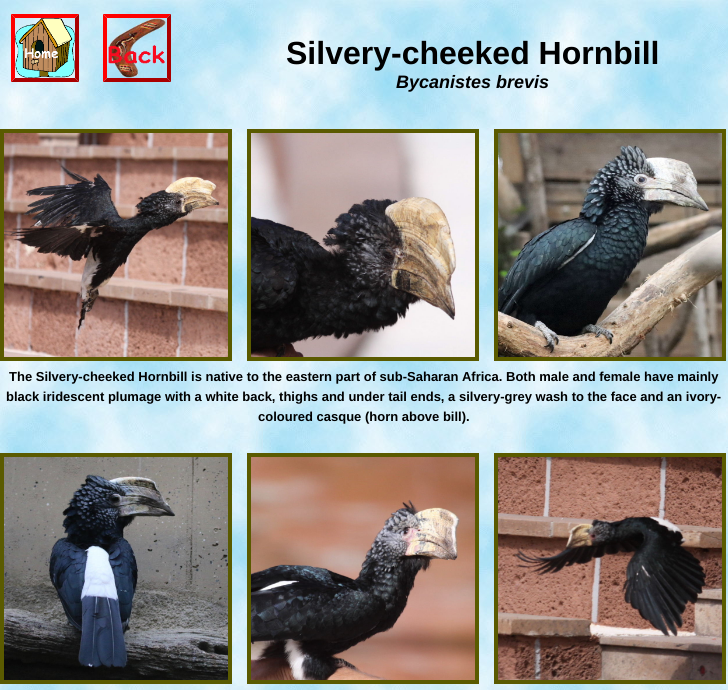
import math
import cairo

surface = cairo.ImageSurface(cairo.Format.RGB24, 728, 690)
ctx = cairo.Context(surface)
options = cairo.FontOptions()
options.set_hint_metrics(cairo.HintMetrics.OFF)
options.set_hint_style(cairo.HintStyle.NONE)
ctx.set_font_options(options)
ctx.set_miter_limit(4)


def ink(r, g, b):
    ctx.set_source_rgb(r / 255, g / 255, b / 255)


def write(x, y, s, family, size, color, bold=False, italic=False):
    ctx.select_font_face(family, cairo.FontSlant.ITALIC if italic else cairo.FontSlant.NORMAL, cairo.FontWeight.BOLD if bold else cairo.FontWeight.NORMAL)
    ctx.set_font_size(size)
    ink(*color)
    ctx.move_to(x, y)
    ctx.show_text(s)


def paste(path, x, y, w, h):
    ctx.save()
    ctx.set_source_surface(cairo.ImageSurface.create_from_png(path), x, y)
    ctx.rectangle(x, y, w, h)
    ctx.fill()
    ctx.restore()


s1 = dict(family="Liberation Sans", size=32, color=(0, 0, 0), bold=True)
s2 = dict(family="Liberation Sans", size=18, color=(0, 0, 0), bold=True, italic=True)
s3 = dict(family="Liberation Sans", size=13, color=(0, 0, 0), bold=True)

ink(255, 255, 255)
ctx.paint()
paste("pic1.png", 0, 0, 728, 690)
ink(255, 0, 0)
ctx.new_path()
ctx.move_to(11, 14)
ctx.line_to(79, 14)
ctx.line_to(75, 18)
ctx.line_to(15, 18)
ctx.close_path()
ctx.fill()
ink(170, 0, 0)
ctx.new_path()
ctx.move_to(79, 14)
ctx.line_to(79, 82)
ctx.line_to(75, 78)
ctx.line_to(75, 18)
ctx.close_path()
ctx.fill()
ctx.new_path()
ctx.move_to(79, 82)
ctx.line_to(11, 82)
ctx.line_to(15, 78)
ctx.line_to(75, 78)
ctx.close_path()
ctx.fill()
ink(255, 0, 0)
ctx.new_path()
ctx.move_to(11, 82)
ctx.line_to(11, 14)
ctx.line_to(15, 18)
ctx.line_to(15, 78)
ctx.close_path()
ctx.fill()
ctx.new_path()
ctx.move_to(103, 14)
ctx.line_to(171, 14)
ctx.line_to(167, 18)
ctx.line_to(107, 18)
ctx.close_path()
ctx.fill()
paste("pic2.png", 15, 18, 60, 60)
ink(170, 0, 0)
ctx.new_path()
ctx.move_to(171, 14)
ctx.line_to(171, 82)
ctx.line_to(167, 78)
ctx.line_to(167, 18)
ctx.close_path()
ctx.fill()
ctx.new_path()
ctx.move_to(171, 82)
ctx.line_to(103, 82)
ctx.line_to(107, 78)
ctx.line_to(167, 78)
ctx.close_path()
ctx.fill()
ink(255, 0, 0)
ctx.new_path()
ctx.move_to(103, 82)
ctx.line_to(103, 14)
ctx.line_to(107, 18)
ctx.line_to(107, 78)
ctx.close_path()
ctx.fill()
paste("pic3.png", 108, 18, 58, 60)
write(286, 64, "Silvery-cheeked Hornbill", **s1)
write(396, 88, "Bycanistes brevis", **s2)
ctx.rectangle(2, 131, 228, 228)
ink(90, 90, 0)
ctx.set_line_width(4)
ctx.stroke()
paste("pic4.png", 4, 133, 224, 224)
ctx.rectangle(249, 131, 228, 228)
ctx.stroke()
paste("pic5.png", 251, 133, 224, 224)
ctx.rectangle(496, 131, 228, 228)
ctx.stroke()
paste("pic6.png", 498, 133, 224, 224)
write(9, 381, "The Silvery-cheeked Hornbill is native to the eastern part of sub-Saharan Africa. Both male and female have mainly", **s3)
write(6, 401, "black iridescent plumage with a white back, thighs and under tail ends, a silvery-grey wash to the face and an ivory-", **s3)
write(258, 421, "coloured casque (horn above bill).", **s3)
ctx.rectangle(2, 455, 228, 227)
ink(90, 90, 0)
ctx.stroke()
paste("pic7.png", 4, 457, 224, 223)
ctx.rectangle(249, 455, 228, 227)
ctx.stroke()
paste("pic8.png", 251, 457, 224, 223)
ctx.rectangle(496, 455, 228, 227)
ctx.stroke()
paste("pic9.png", 498, 457, 224, 223)
surface.write_to_png("screenshot.png")
